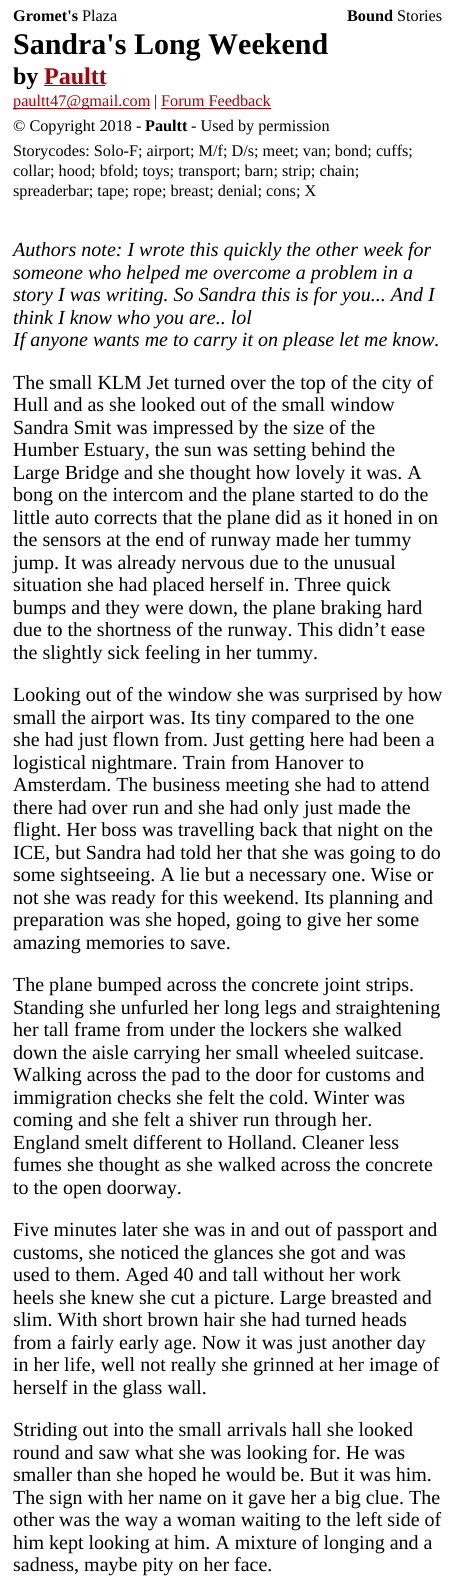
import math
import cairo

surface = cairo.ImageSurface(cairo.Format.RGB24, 454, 1593)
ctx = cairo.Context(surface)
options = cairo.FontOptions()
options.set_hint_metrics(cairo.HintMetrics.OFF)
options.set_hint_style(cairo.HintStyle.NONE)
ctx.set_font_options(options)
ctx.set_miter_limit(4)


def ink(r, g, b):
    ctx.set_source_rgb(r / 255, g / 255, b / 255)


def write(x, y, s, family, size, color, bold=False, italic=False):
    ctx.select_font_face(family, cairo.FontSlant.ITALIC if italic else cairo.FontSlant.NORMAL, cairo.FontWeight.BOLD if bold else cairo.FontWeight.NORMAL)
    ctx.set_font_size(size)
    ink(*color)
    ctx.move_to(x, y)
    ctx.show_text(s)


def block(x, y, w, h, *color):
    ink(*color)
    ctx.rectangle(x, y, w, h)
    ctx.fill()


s1 = dict(family="Liberation Serif", size=16.25, color=(0, 0, 0), bold=True)
s2 = dict(family="Liberation Serif", size=16.25, color=(0, 0, 0))
s3 = dict(family="Liberation Serif", size=30, color=(0, 0, 0), bold=True)
s4 = dict(family="Liberation Serif", size=24, color=(0, 0, 0), bold=True)
s5 = dict(family="Liberation Serif", size=24, color=(176, 0, 5), bold=True)
s6 = dict(family="Liberation Serif", size=16.25, color=(176, 0, 5))
s7 = dict(family="Liberation Serif", size=20, color=(0, 0, 0), italic=True)
s8 = dict(family="Liberation Serif", size=20, color=(0, 0, 0))

ink(255, 255, 255)
ctx.paint()
write(13, 21, "Gromet's", **s1)
write(82, 21, "Plaza", **s2)
write(347, 21, "Bound", **s1)
write(397, 21, "Stories", **s2)
write(13, 54, "Sandra's Long Weekend", **s3)
write(13, 84, "by", **s4)
write(44, 84, "Paultt", **s5)
block(44, 85, 61, 1, 176, 0, 5)
block(13, 108, 137, 1, 176, 0, 5)
write(13, 106, "paultt47@gmail.com", **s6)
write(154, 106, "|", **s2)
write(161, 106, "Forum Feedback", **s6)
block(161, 108, 110, 1, 176, 0, 5)
write(13, 131, "© Copyright 2018 -", **s2)
write(145, 131, "Paultt", **s1)
write(191, 131, "- Used by permission", **s2)
write(13, 156, "Storycodes: Solo-F; airport; M/f; D/s; meet; van; bond; cuffs;", **s2)
write(13, 176, "collar; hood; bfold; toys; transport; barn; strip; chain;", **s2)
write(13, 196, "spreaderbar; tape; rope; breast; denial; cons; X", **s2)
write(13, 256, "Authors note: I wrote this quickly the other week for", **s7)
write(13, 279, "someone who helped me overcome a problem in a", **s7)
write(13, 301, "story I was writing. So Sandra this is for you... And I", **s7)
write(13, 324, "think I know who you are.. lol", **s7)
write(13, 346, "If anyone wants me to carry it on please let me know.", **s7)
write(13, 389, "The small KLM Jet turned over the top of the city of", **s8)
write(13, 411, "Hull and as she looked out of the small window", **s8)
write(13, 434, "Sandra Smit was impressed by the size of the", **s8)
write(13, 456, "Humber Estuary, the sun was setting behind the", **s8)
write(13, 479, "Large Bridge and she thought how lovely it was. A", **s8)
write(13, 501, "bong on the intercom and the plane started to do the", **s8)
write(13, 524, "little auto corrects that the plane did as it honed in on", **s8)
write(13, 546, "the sensors at the end of runway made her tummy", **s8)
write(13, 569, "jump. It was already nervous due to the unusual", **s8)
write(13, 591, "situation she had placed herself in. Three quick", **s8)
write(13, 614, "bumps and they were down, the plane braking hard", **s8)
write(13, 636, "due to the shortness of the runway. This didn’t ease", **s8)
write(13, 659, "the slightly sick feeling in her tummy.", **s8)
write(13, 701, "Looking out of the window she was surprised by how", **s8)
write(13, 724, "small the airport was. Its tiny compared to the one", **s8)
write(13, 746, "she had just flown from. Just getting here had been a", **s8)
write(13, 769, "logistical nightmare. Train from Hanover to", **s8)
write(13, 791, "Amsterdam. The business meeting she had to attend", **s8)
write(13, 814, "there had over run and she had only just made the", **s8)
write(13, 836, "flight. Her boss was travelling back that night on the", **s8)
write(13, 859, "ICE, but Sandra had told her that she was going to do", **s8)
write(13, 881, "some sightseeing. A lie but a necessary one. Wise or", **s8)
write(13, 904, "not she was ready for this weekend. Its planning and", **s8)
write(13, 926, "preparation was she hoped, going to give her some", **s8)
write(13, 949, "amazing memories to save.", **s8)
write(13, 991, "The plane bumped across the concrete joint strips.", **s8)
write(13, 1014, "Standing she unfurled her long legs and straightening", **s8)
write(13, 1036, "her tall frame from under the lockers she walked", **s8)
write(13, 1059, "down the aisle carrying her small wheeled suitcase.", **s8)
write(13, 1081, "Walking across the pad to the door for customs and", **s8)
write(13, 1104, "immigration checks she felt the cold. Winter was", **s8)
write(13, 1126, "coming and she felt a shiver run through her.", **s8)
write(13, 1149, "England smelt different to Holland. Cleaner less", **s8)
write(13, 1171, "fumes she thought as she walked across the concrete", **s8)
write(13, 1194, "to the open doorway.", **s8)
write(13, 1236, "Five minutes later she was in and out of passport and", **s8)
write(13, 1259, "customs, she noticed the glances she got and was", **s8)
write(13, 1281, "used to them. Aged 40 and tall without her work", **s8)
write(13, 1304, "heels she knew she cut a picture. Large breasted and", **s8)
write(13, 1326, "slim. With short brown hair she had turned heads", **s8)
write(13, 1349, "from a fairly early age. Now it was just another day", **s8)
write(13, 1371, "in her life, well not really she grinned at her image of", **s8)
write(13, 1394, "herself in the glass wall.", **s8)
write(13, 1436, "Striding out into the small arrivals hall she looked", **s8)
write(13, 1459, "round and saw what she was looking for. He was", **s8)
write(13, 1481, "smaller than she hoped he would be. But it was him.", **s8)
write(13, 1504, "The sign with her name on it gave her a big clue. The", **s8)
write(13, 1526, "other was the way a woman waiting to the left side of", **s8)
write(13, 1549, "him kept looking at him. A mixture of longing and a", **s8)
write(13, 1571, "sadness, maybe pity on her face.", **s8)
surface.write_to_png("screenshot.png")
